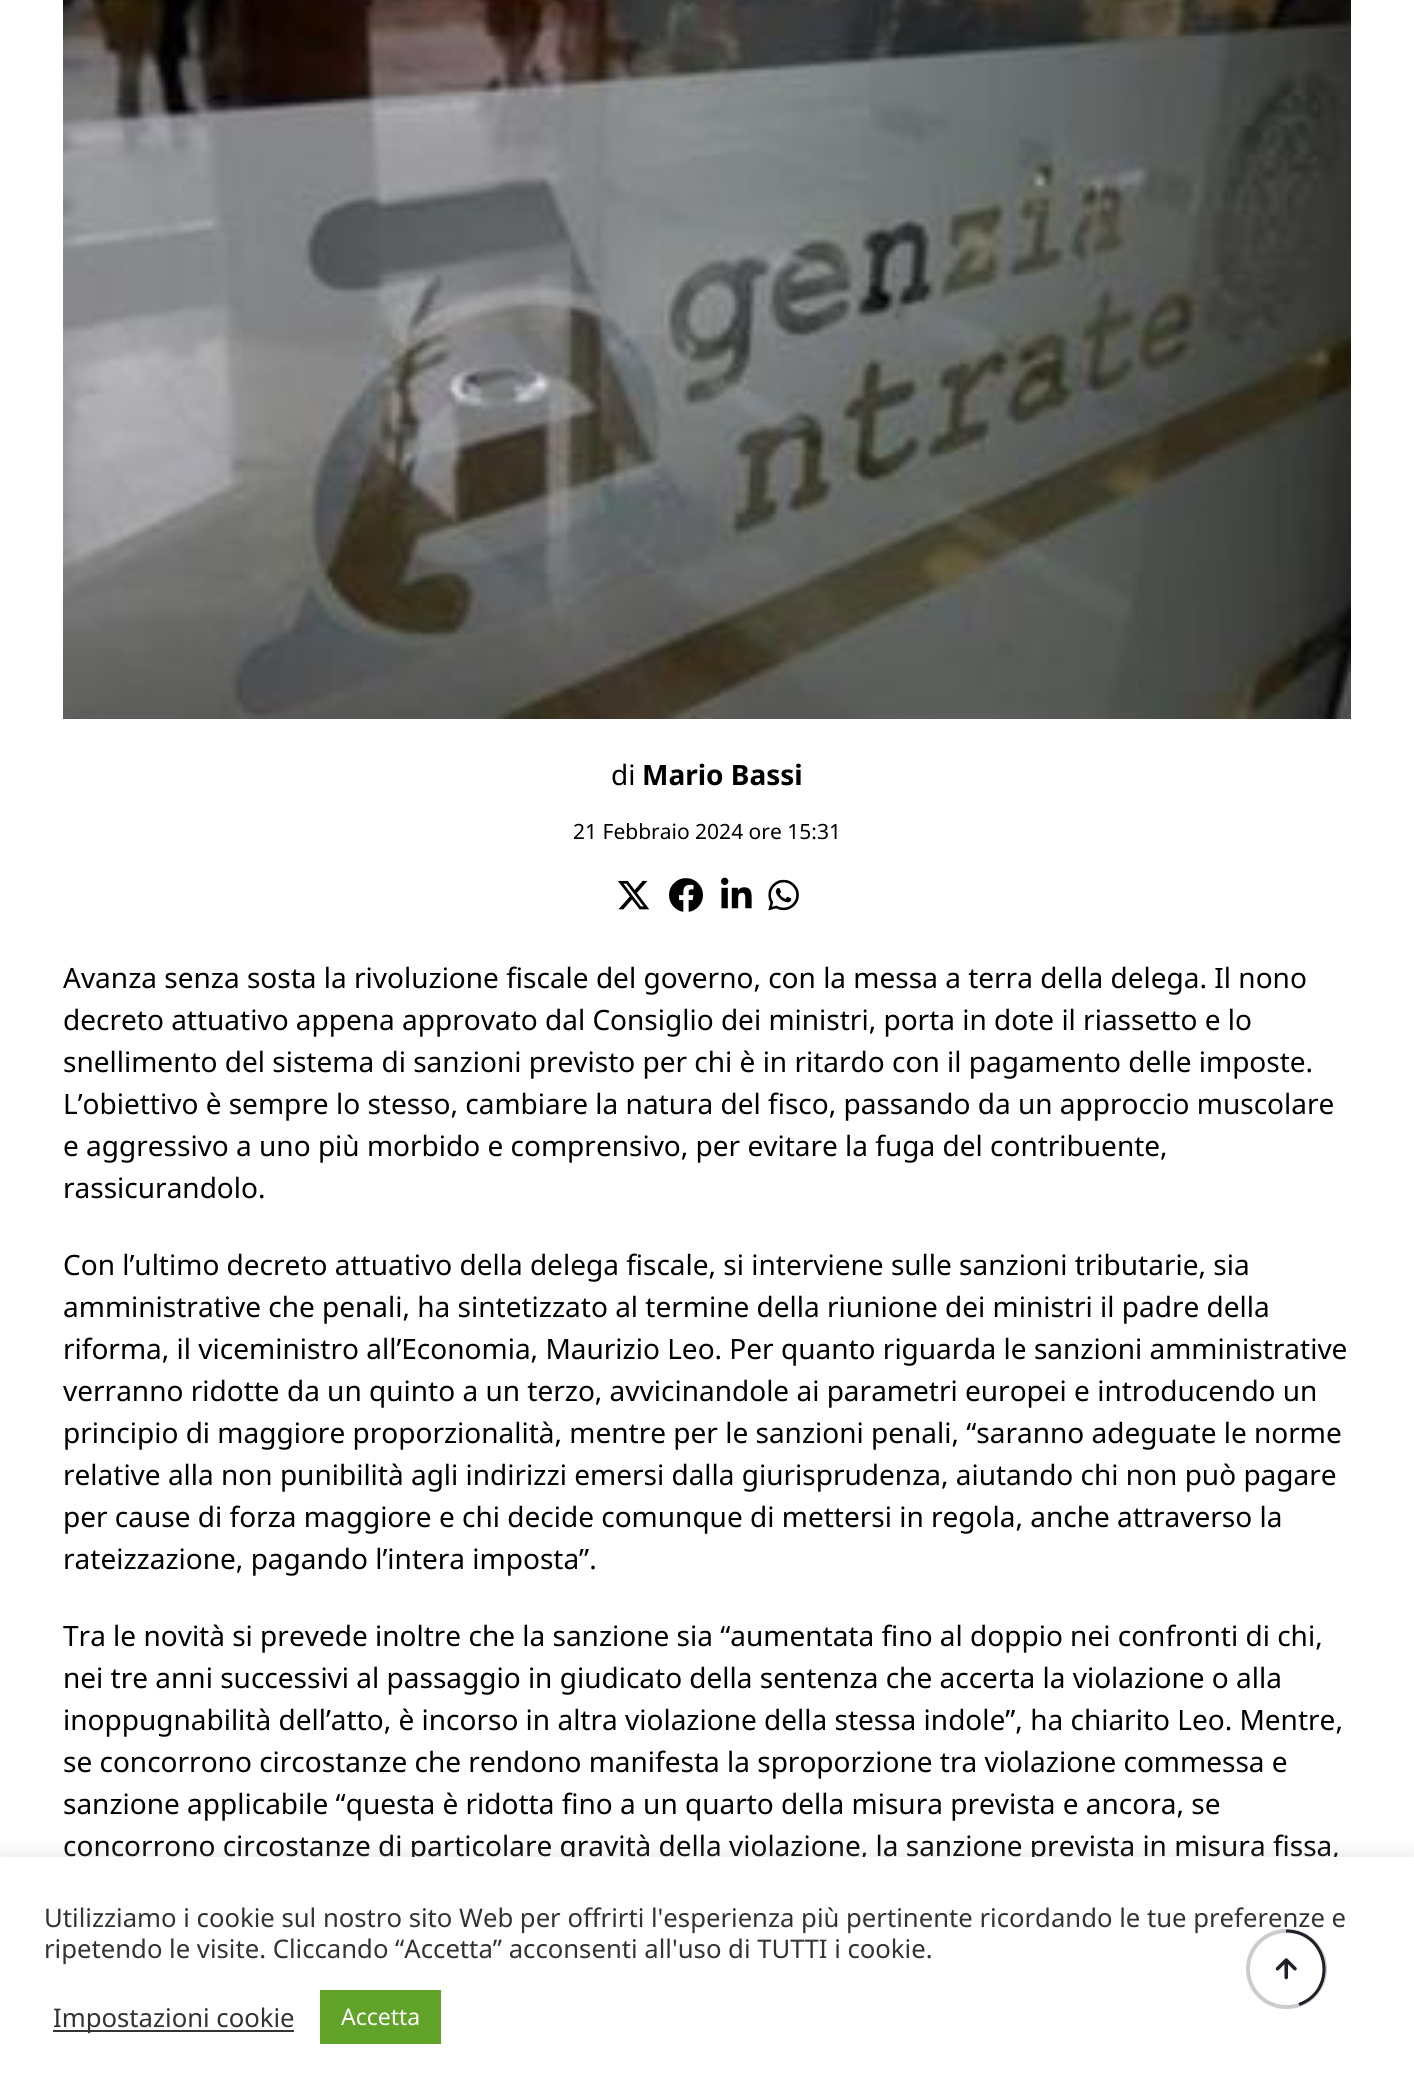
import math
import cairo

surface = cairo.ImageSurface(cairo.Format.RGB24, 1414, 2095)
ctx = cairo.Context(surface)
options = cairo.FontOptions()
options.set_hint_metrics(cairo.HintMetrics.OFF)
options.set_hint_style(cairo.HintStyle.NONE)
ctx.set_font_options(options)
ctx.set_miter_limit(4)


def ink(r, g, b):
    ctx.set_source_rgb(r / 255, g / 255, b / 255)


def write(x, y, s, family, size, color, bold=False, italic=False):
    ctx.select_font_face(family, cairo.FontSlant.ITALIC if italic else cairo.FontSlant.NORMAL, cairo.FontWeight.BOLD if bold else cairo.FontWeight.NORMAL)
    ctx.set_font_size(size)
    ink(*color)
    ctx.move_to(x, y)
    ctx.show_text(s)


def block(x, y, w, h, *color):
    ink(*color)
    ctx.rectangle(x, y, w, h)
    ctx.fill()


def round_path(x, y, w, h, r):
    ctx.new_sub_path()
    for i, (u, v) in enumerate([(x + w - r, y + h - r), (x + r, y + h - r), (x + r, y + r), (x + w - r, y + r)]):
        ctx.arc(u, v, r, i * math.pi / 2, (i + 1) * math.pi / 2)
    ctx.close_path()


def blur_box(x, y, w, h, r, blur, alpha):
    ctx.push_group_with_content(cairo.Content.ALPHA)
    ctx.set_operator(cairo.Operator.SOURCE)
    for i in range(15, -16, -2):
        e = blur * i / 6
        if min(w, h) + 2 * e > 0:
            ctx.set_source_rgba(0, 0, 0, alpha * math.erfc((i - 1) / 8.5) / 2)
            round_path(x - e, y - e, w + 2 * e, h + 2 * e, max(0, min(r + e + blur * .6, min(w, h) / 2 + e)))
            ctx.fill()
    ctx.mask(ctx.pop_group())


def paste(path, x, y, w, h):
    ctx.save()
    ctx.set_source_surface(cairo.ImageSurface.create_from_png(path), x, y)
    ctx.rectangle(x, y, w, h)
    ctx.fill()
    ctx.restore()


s1 = dict(family="Noto Sans", size=28, color=(0, 0, 0))
s2 = dict(family="Noto Sans", size=28, color=(0, 0, 0), bold=True)
s3 = dict(family="Noto Sans", size=21, color=(0, 0, 0))
s4 = dict(family="Noto Sans", size=25.67, color=(51, 51, 51))
s5 = dict(family="Noto Sans", size=23, color=(255, 255, 255))

ink(255, 255, 255)
ctx.paint()
paste("pic1.png", 63, 0, 1288, 719)
write(611, 785, "di", **s1)
write(642, 785, "Mario Bassi", **s2)
write(573, 839, "21 Febbraio 2024 ore 15:31", **s3)
paste("pic2.png", 618, 880, 32, 30)
paste("pic3.png", 669, 878, 34, 34)
paste("pic4.png", 721, 877, 31, 32)
paste("pic5.png", 768, 879, 31, 32)
write(63, 988, "Avanza senza sosta la rivoluzione fiscale del governo, con la messa a terra della delega. Il nono", **s1)
write(63, 1030, "decreto attuativo appena approvato dal Consiglio dei ministri, porta in dote il riassetto e lo", **s1)
write(63, 1072, "snellimento del sistema di sanzioni previsto per chi è in ritardo con il pagamento delle imposte.", **s1)
write(63, 1114, "L’obiettivo è sempre lo stesso, cambiare la natura del fisco, passando da un approccio muscolare", **s1)
write(63, 1156, "e aggressivo a uno più morbido e comprensivo, per evitare la fuga del contribuente,", **s1)
write(63, 1198, "rassicurandolo.", **s1)
write(63, 1275, "Con l’ultimo decreto attuativo della delega fiscale, si interviene sulle sanzioni tributarie, sia", **s1)
write(63, 1317, "amministrative che penali, ha sintetizzato al termine della riunione dei ministri il padre della", **s1)
write(63, 1359, "riforma, il viceministro all’Economia, Maurizio Leo. Per quanto riguarda le sanzioni amministrative", **s1)
write(63, 1401, "verranno ridotte da un quinto a un terzo, avvicinandole ai parametri europei e introducendo un", **s1)
write(63, 1443, "principio di maggiore proporzionalità, mentre per le sanzioni penali, “saranno adeguate le norme", **s1)
write(63, 1485, "relative alla non punibilità agli indirizzi emersi dalla giurisprudenza, aiutando chi non può pagare", **s1)
write(63, 1527, "per cause di forza maggiore e chi decide comunque di mettersi in regola, anche attraverso la", **s1)
write(63, 1569, "rateizzazione, pagando l’intera imposta”.", **s1)
write(63, 1646, "Tra le novità si prevede inoltre che la sanzione sia “aumentata fino al doppio nei confronti di chi,", **s1)
write(63, 1688, "nei tre anni successivi al passaggio in giudicato della sentenza che accerta la violazione o alla", **s1)
write(63, 1730, "inoppugnabilità dell’atto, è incorso in altra violazione della stessa indole”, ha chiarito Leo. Mentre,", **s1)
write(63, 1772, "se concorrono circostanze che rendono manifesta la sproporzione tra violazione commessa e", **s1)
write(63, 1814, "sanzione applicabile “questa è ridotta fino a un quarto della misura prevista e ancora, se", **s1)
write(63, 1856, "concorrono circostanze di particolare gravità della violazione, la sanzione prevista in misura fissa,", **s1)
ink(172, 171, 171)
blur_box(0, 1855, 1414, 240, 0, 9, 0.3)
block(0, 1857, 1414, 238, 255, 255, 255)
write(44, 1927, "Utilizziamo i cookie sul nostro sito Web per offrirti l'esperienza più pertinente ricordando le tue preferenze e", **s4)
write(44, 1958, "ripetendo le visite. Cliccando “Accetta” acconsenti all'uso di TUTTI i cookie.", **s4)
block(53, 2030, 241, 2, 51, 51, 51)
write(53, 2027, "Impostazioni cookie", **s4)
block(320, 1990, 121, 54, 97, 162, 41)
write(341, 2025, "Accetta", **s5)
round_path(1248, 1931, 77, 76, 38)
ink(204, 204, 204)
ctx.set_line_width(4)
ctx.stroke()
ctx.new_path()
ctx.move_to(1286, 1931)
ctx.curve_to(1329, 1931, 1338.5, 1990.5, 1299, 2004.5)
ink(31, 32, 41)
ctx.set_line_width(3.1)
ctx.stroke()
paste("pic6.png", 1275, 1958, 22, 22)
surface.write_to_png("screenshot.png")
